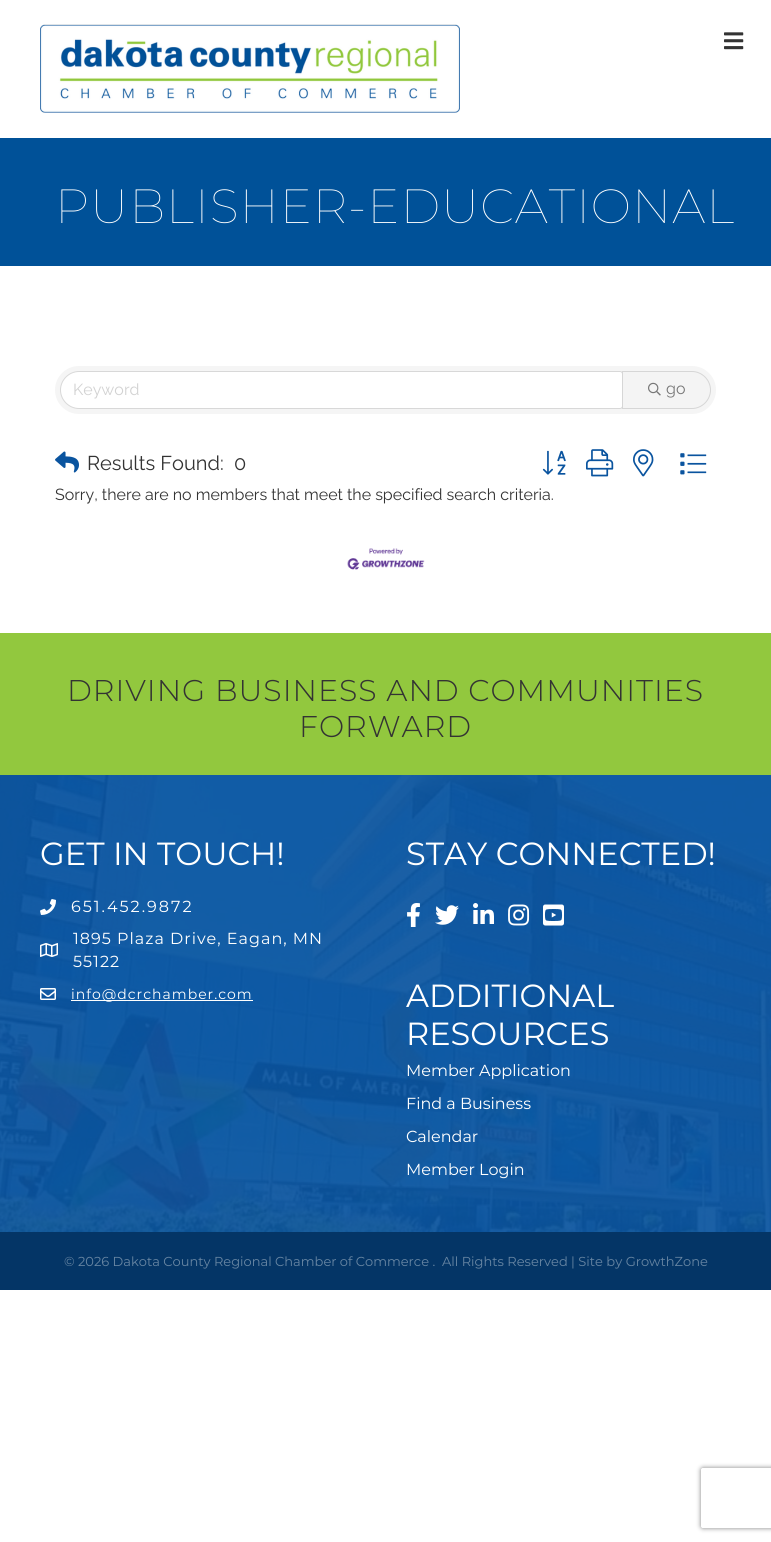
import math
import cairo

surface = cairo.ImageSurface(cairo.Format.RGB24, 771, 1542)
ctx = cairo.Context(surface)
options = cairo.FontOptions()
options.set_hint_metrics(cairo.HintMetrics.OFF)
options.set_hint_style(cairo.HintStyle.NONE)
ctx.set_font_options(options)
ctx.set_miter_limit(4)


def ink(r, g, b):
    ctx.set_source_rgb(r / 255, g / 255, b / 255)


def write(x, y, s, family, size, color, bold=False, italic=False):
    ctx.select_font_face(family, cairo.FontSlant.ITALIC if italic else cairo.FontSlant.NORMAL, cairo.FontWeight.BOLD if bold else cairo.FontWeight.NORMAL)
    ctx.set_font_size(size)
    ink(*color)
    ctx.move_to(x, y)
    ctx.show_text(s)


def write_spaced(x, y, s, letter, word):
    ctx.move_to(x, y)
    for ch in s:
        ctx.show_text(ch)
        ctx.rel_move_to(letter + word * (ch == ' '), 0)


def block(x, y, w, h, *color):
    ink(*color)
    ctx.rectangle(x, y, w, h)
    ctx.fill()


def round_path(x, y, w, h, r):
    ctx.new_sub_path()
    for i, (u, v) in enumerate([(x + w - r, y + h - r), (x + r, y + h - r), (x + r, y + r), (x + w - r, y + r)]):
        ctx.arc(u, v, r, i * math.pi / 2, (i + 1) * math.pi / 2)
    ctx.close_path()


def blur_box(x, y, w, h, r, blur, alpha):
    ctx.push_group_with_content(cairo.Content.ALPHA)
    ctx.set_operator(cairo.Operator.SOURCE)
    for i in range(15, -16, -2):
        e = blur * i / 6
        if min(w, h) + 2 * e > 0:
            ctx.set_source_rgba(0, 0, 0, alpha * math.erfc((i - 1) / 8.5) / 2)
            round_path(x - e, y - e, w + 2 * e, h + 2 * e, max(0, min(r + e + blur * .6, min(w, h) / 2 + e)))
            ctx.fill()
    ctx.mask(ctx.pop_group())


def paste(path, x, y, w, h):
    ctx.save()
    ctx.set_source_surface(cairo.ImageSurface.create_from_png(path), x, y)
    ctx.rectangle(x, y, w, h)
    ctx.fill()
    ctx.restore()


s1 = dict(family="Raleway", size=16, color=(210, 210, 210))
s2 = dict(family="Raleway", size=16, color=(119, 119, 119))
s3 = dict(family="Raleway", size=20, color=(51, 51, 51))
s4 = dict(family="Raleway", size=16, color=(51, 51, 51))
s5 = dict(family="Montserrat", size=32, color=(255, 255, 255))
s6 = dict(family="Montserrat", size=16, color=(255, 255, 255))
s7 = dict(family="Montserrat", size=13, color=(104, 134, 163))

ink(255, 255, 255)
ctx.paint()
paste("pic1.png", 40, 24, 420, 89)
paste("pic2.png", 724, 32, 20, 18)
block(0, 138, 771, 128, 0, 81, 152)
ctx.select_font_face("Montserrat Thin")
ctx.set_font_size(48)
ink(255, 255, 255)
write_spaced(55, 223, "PUBLISHER-EDUCATIONAL", 1, 0)
ink(245, 245, 245)
round_path(55, 366, 661, 48, 24)
ctx.fill()
ink(255, 255, 255)
ctx.new_path()
ctx.move_to(79, 372)
ctx.line_to(620, 372)
ctx.curve_to(621, 372, 622, 373, 622, 374)
ctx.line_to(622, 406)
ctx.curve_to(622, 407, 621, 408, 620, 408)
ctx.line_to(79, 408)
ctx.curve_to(69, 408, 61, 400, 61, 390)
ctx.curve_to(61, 380, 69, 372, 79, 372)
ctx.close_path()
ctx.fill()
ctx.new_path()
ctx.move_to(79, 371.5)
ctx.line_to(620, 371.5)
ctx.curve_to(621.5, 371.5, 622.5, 372.5, 622.5, 374)
ctx.line_to(622.5, 406)
ctx.curve_to(622.5, 407.5, 621.5, 408.5, 620, 408.5)
ctx.line_to(79, 408.5)
ctx.curve_to(69, 408.5, 60.5, 400, 60.5, 390)
ctx.curve_to(60.5, 380, 69, 371.5, 79, 371.5)
ctx.close_path()
ctx.set_source_rgba(0, 0, 0, 0.12)
ctx.set_line_width(1)
ctx.stroke()
write(73, 395, "Keyword", **s1)
ink(244, 244, 244)
ctx.new_path()
ctx.move_to(622.5, 371.5)
ctx.line_to(692, 371.5)
ctx.curve_to(702, 371.5, 710.5, 380, 710.5, 390)
ctx.curve_to(710.5, 400, 702, 408.5, 692, 408.5)
ctx.line_to(622.5, 408.5)
ctx.close_path()
ctx.fill_preserve()
ink(214, 214, 214)
ctx.stroke()
paste("pic3.png", 648, 382, 13, 14)
write(666, 394, "go", **s2)
paste("pic4.png", 55, 451, 24, 22)
write(87, 470, "Results Found:", **s3)
write(234, 470, "0", **s3)
paste("pic5.png", 542, 450, 24, 25)
paste("pic6.png", 586, 449, 28, 28)
paste("pic7.png", 633, 449, 21, 28)
paste("pic8.png", 680, 453, 27, 22)
write(55, 500, "Sorry, there are no members that meet the specified search criteria.", **s4)
paste("pic9.png", 347, 548, 78, 22)
block(0, 633, 771, 142, 146, 200, 62)
ctx.select_font_face("Montserrat Light")
ctx.set_font_size(30)
ink(51, 51, 51)
write_spaced(67, 701, "DRIVING BUSINESS AND COMMUNITIES", 1, 0)
write_spaced(299, 737, "FORWARD", 1, 0)
paste("pic10.png", 0, 775, 771, 457)
write(40, 865, "GET IN TOUCH!", **s5)
paste("pic11.png", 40, 899, 16, 16)
ctx.set_font_size(16)
write_spaced(71, 912, "651.452.9872", 2, 0)
paste("pic12.png", 40, 943, 18, 14)
write_spaced(73, 944, "1895 Plaza Drive, Eagan, MN", 1, 0)
write_spaced(73, 967, "55122", 1, 0)
paste("pic13.png", 40, 988, 16, 12)
block(71, 1000, 182, 1, 255, 255, 255)
ctx.set_font_size(14)
write_spaced(71, 999, "info@dcrchamber.com", 1, 0)
write(406, 865, "STAY CONNECTED!", **s5)
paste("pic14.png", 407, 903, 13, 24)
paste("pic15.png", 435, 905, 24, 20)
paste("pic16.png", 473, 903, 21, 21)
paste("pic17.png", 508, 904, 22, 22)
paste("pic18.png", 543, 904, 21, 22)
write(406, 1007, "ADDITIONAL", **s5)
write(406, 1045, "RESOURCES", **s5)
write(406, 1076, "Member Application", **s6)
write(406, 1109, "Find a Business", **s6)
write(406, 1142, "Calendar", **s6)
write(406, 1175, "Member Login", **s6)
block(0, 1232, 771, 58, 4, 53, 102)
write(64, 1266, "© 2026 Dakota County Regional Chamber of Commerce .", **s7)
write(442, 1266, "All Rights Reserved | Site by GrowthZone", **s7)
ctx.save()
ctx.set_fill_rule(cairo.FillRule.EVEN_ODD)
ctx.new_path()
ctx.move_to(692, 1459)
ctx.line_to(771, 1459)
ctx.line_to(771, 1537)
ctx.line_to(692, 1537)
ctx.close_path()
ctx.move_to(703, 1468)
ctx.line_to(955, 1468)
ctx.curve_to(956, 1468, 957, 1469, 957, 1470)
ctx.line_to(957, 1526)
ctx.curve_to(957, 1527, 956, 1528, 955, 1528)
ctx.line_to(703, 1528)
ctx.curve_to(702, 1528, 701, 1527, 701, 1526)
ctx.line_to(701, 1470)
ctx.curve_to(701, 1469, 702, 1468, 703, 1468)
ctx.close_path()
ctx.clip()
ink(128, 128, 128)
blur_box(701, 1468, 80, 60, 2, 2.5, 1)
ctx.restore()
surface.write_to_png("screenshot.png")
